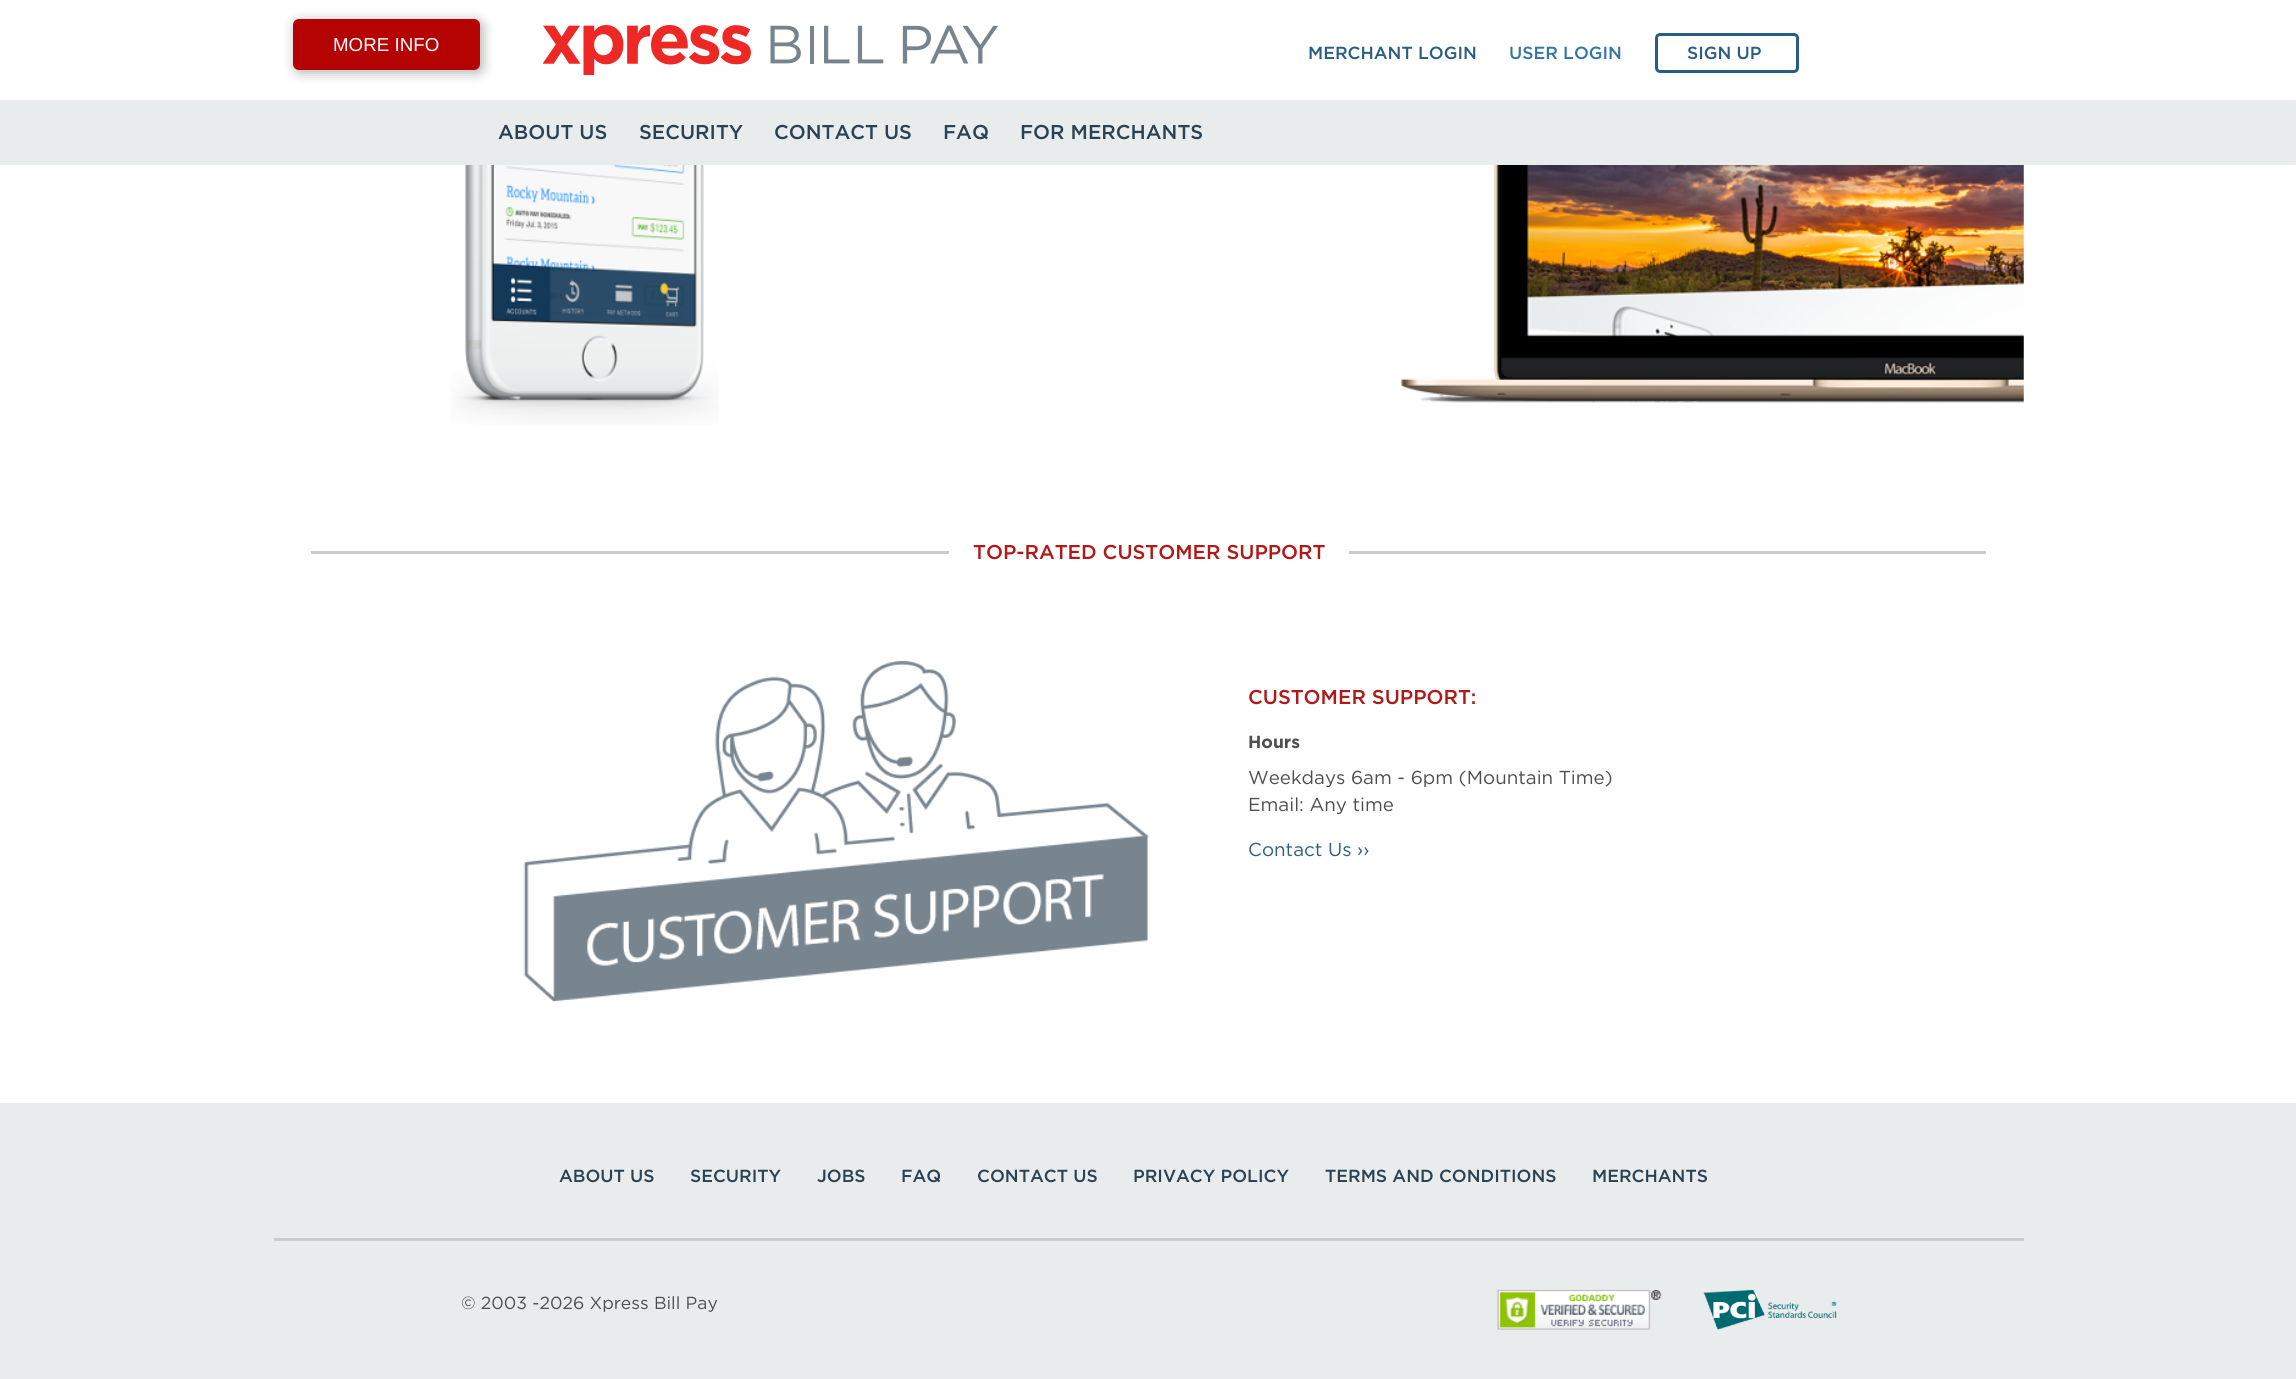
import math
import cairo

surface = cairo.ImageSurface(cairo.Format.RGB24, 2296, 1379)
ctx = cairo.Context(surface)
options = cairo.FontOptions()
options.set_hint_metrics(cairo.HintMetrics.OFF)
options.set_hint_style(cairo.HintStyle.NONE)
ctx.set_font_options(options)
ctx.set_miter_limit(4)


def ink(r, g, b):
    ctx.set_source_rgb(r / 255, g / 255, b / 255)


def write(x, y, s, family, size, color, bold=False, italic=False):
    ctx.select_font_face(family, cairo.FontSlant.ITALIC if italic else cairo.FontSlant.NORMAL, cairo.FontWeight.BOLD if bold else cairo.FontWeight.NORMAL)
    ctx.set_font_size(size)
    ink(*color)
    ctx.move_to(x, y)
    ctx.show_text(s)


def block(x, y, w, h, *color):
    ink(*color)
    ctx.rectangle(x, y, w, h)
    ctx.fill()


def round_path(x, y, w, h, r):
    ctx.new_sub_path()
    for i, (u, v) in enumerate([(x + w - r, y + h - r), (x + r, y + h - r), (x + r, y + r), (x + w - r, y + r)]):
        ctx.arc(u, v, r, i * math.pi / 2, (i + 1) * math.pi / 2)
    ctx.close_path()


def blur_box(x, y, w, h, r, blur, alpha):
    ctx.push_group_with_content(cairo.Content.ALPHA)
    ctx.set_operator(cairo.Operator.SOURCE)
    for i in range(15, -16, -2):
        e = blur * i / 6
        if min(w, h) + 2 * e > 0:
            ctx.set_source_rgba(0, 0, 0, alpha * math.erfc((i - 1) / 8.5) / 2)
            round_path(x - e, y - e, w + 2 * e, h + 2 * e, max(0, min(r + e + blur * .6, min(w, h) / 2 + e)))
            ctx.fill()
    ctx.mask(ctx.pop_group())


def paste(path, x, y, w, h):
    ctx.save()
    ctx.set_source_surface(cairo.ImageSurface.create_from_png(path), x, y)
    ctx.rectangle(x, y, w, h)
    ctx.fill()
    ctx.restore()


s1 = dict(family="Liberation Sans", size=18.75, color=(255, 255, 255))
s2 = dict(family="Gotham Medium", size=17.5, color=(42, 93, 132))
s3 = dict(family="Gotham Medium", size=17.5, color=(52, 117, 166))
s4 = dict(family="Gotham Medium", size=20, color=(43, 66, 83))
s5 = dict(family="Gotham Medium", size=20, color=(176, 25, 23))
s6 = dict(family="Gotham", size=17.5, color=(78, 78, 78), bold=True)
s7 = dict(family="Gotham", size=18.75, color=(78, 78, 78))
s8 = dict(family="Gotham", size=18.75, color=(42, 93, 132))
s9 = dict(family="Gotham Medium", size=17.5, color=(43, 66, 83))
s10 = dict(family="Gotham", size=17.5, color=(78, 78, 78))

ink(255, 255, 255)
ctx.paint()
ink(0, 0, 0)
blur_box(295, 21, 188, 52, 6, 6, 0.3)
ink(181, 3, 3)
round_path(293, 19, 187, 51, 6)
ctx.fill()
write(333, 51, "MORE INFO", **s1)
paste("pic1.png", 543, 25, 455, 50)
write(1308, 59, "MERCHANT LOGIN", **s2)
write(1509, 59, "USER LOGIN", **s3)
round_path(1656.5, 34.5, 141, 37, 3.5)
ink(42, 93, 132)
ctx.set_line_width(3)
ctx.stroke()
write(1687, 59, "SIGN UP", **s2)
block(0, 100, 2296, 65, 233, 236, 237)
write(498, 139, "ABOUT US", **s4)
write(639, 139, "SECURITY", **s4)
write(774, 139, "CONTACT US", **s4)
write(943, 139, "FAQ", **s4)
write(1020, 139, "FOR MERCHANTS", **s4)
paste("pic2.png", 451, 165, 268, 260)
paste("pic3.png", 1401, 165, 623, 238)
block(311, 551, 1675, 3, 204, 204, 204)
block(949, 551, 400, 3, 255, 255, 255)
write(973, 559, "TOP-RATED CUSTOMER SUPPORT", **s5)
paste("pic4.png", 523, 661, 626, 341)
write(1248, 704, "CUSTOMER SUPPORT:", **s5)
write(1248, 748, "Hours", **s6)
write(1248, 784, "Weekdays 6am - 6pm (Mountain Time)", **s7)
write(1248, 811, "Email: Any time", **s7)
write(1248, 856, "Contact Us ››", **s8)
block(0, 1103, 2296, 276, 233, 236, 237)
write(559, 1182, "ABOUT US", **s9)
write(690, 1182, "SECURITY", **s9)
write(817, 1182, "JOBS", **s9)
write(901, 1182, "FAQ", **s9)
write(977, 1182, "CONTACT US", **s9)
write(1133, 1182, "PRIVACY POLICY", **s9)
write(1325, 1182, "TERMS AND CONDITIONS", **s9)
write(1592, 1182, "MERCHANTS", **s9)
block(274, 1238, 1750, 3, 204, 204, 204)
write(461, 1309, "© 2003 -2026 Xpress Bill Pay", **s10)
paste("pic5.png", 1497, 1289, 165, 41)
paste("pic6.png", 1703, 1289, 134, 41)
surface.write_to_png("screenshot.png")
